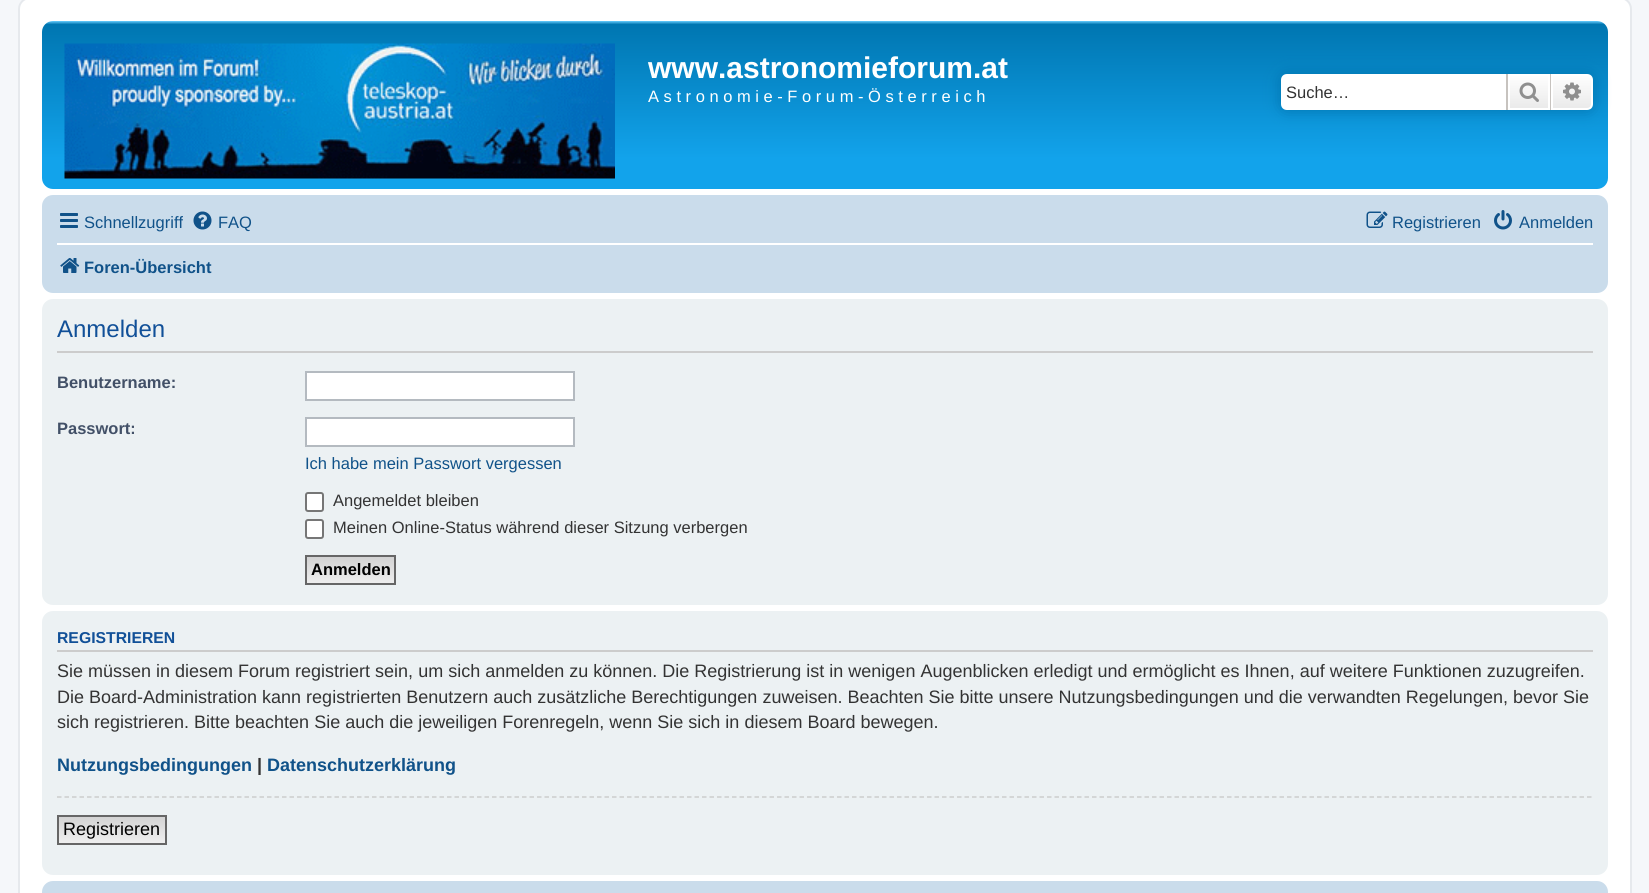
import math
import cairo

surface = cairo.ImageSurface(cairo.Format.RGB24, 1649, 893)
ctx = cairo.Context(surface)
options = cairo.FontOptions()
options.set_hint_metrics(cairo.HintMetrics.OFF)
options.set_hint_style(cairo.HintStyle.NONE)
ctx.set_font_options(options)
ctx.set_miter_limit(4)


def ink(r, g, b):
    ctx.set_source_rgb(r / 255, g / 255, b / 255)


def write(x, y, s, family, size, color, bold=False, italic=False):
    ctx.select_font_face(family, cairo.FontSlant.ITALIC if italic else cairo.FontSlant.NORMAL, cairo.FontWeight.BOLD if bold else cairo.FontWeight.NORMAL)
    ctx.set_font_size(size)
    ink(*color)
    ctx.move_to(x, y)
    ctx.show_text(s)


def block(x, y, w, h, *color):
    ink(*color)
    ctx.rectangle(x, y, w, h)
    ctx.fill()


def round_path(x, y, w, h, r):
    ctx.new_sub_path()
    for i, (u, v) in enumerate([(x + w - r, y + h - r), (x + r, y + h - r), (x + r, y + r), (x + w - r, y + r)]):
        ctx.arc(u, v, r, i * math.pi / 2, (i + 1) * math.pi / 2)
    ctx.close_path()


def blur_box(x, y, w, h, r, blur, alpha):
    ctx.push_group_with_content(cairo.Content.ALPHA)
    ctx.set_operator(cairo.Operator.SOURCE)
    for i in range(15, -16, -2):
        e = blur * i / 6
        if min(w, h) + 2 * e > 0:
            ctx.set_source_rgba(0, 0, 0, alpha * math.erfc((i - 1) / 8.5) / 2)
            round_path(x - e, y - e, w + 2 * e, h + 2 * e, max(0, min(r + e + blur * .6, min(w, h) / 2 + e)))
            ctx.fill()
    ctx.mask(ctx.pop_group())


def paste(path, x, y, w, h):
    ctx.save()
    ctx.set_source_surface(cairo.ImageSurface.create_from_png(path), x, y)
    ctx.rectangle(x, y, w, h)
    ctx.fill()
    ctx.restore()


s1 = dict(family="Liberation Sans", size=30, color=(255, 255, 255), bold=True)
s2 = dict(family="Liberation Sans", size=16.5, color=(255, 255, 255))
s3 = dict(family="Liberation Sans", size=16.5, color=(51, 51, 51))
s4 = dict(family="Liberation Sans", size=16.5, color=(16, 82, 137))
s5 = dict(family="Liberation Sans", size=16.5, color=(16, 82, 137), bold=True)
s6 = dict(family="Liberation Sans", size=24, color=(17, 80, 152))
s7 = dict(family="Liberation Sans", size=16.5, color=(66, 80, 103), bold=True)
s8 = dict(family="Liberation Sans", size=16.5, color=(0, 0, 0), bold=True)
s9 = dict(family="Liberation Sans", size=15.75, color=(17, 80, 152), bold=True)
s10 = dict(family="Liberation Sans", size=18, color=(51, 51, 51))
s11 = dict(family="Liberation Sans", size=18, color=(16, 82, 137), bold=True)
s12 = dict(family="Liberation Sans", size=18, color=(51, 51, 51), bold=True)
s13 = dict(family="Liberation Sans", size=18, color=(0, 0, 0))

ink(245, 247, 250)
ctx.paint()
ink(255, 255, 255)
round_path(19, -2, 1612, 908, 11)
ctx.fill_preserve()
ink(230, 233, 237)
ctx.stroke()
gradient = cairo.LinearGradient(825, 21, 825, 189)
gradient.add_color_stop_rgba(0, 0.416, 0.808, 1, 1)
gradient.add_color_stop_rgba(0.02, 0, 0.463, 0.694, 1)
gradient.add_color_stop_rgba(0.82, 0.071, 0.639, 0.922, 1)
gradient.add_color_stop_rgba(1, 0.071, 0.639, 0.922, 1)
ctx.set_source(gradient)
round_path(42, 21, 1566, 168, 11)
ctx.fill()
paste("pic1.png", 64, 43, 551, 136)
write(648, 78, "www.astronomieforum.at", **s1)
write(648, 102, "A s t r o n o m i e - F o r u m - Ö s t e r r e i c h", **s2)
ink(0, 117, 176)
blur_box(1281, 74, 312, 36, 6, 7.5, 1)
ink(255, 255, 255)
ctx.new_path()
ctx.move_to(1287, 74)
ctx.line_to(1506, 74)
ctx.line_to(1506, 110)
ctx.line_to(1287, 110)
ctx.curve_to(1283.5, 110, 1281, 107.5, 1281, 104)
ctx.line_to(1281, 80)
ctx.curve_to(1281, 76.5, 1283.5, 74, 1287, 74)
ctx.close_path()
ctx.fill()
write(1286, 98, "Suche…", **s3)
gradient = cairo.LinearGradient(1529, 74, 1529, 110)
gradient.add_color_stop_rgba(0, 1, 1, 1, 1)
gradient.add_color_stop_rgba(1, 0.914, 0.914, 0.914, 1)
ctx.set_source(gradient)
ctx.rectangle(1510, 76, 38, 32)
ctx.fill()
ctx.rectangle(1509, 75, 40, 34)
ink(255, 255, 255)
ctx.stroke()
block(1550, 74, 1, 36, 199, 195, 191)
block(1506, 74, 2, 36, 199, 195, 191)
paste("pic2.png", 1519, 82, 20, 20)
gradient = cairo.LinearGradient(1572, 74, 1572, 110)
gradient.add_color_stop_rgba(0, 1, 1, 1, 1)
gradient.add_color_stop_rgba(1, 0.914, 0.914, 0.914, 1)
ctx.set_source(gradient)
ctx.new_path()
ctx.move_to(1552, 75)
ctx.line_to(1587, 75)
ctx.curve_to(1590, 75, 1592, 77, 1592, 80)
ctx.line_to(1592, 104)
ctx.curve_to(1592, 107, 1590, 109, 1587, 109)
ctx.line_to(1552, 109)
ctx.close_path()
ctx.fill_preserve()
ink(255, 255, 255)
ctx.stroke()
paste("pic3.png", 1563, 82, 18, 19)
ink(202, 220, 235)
round_path(42, 195, 1566, 98, 11)
ctx.fill()
paste("pic4.png", 60, 213, 18, 15)
write(84, 228, "Schnellzugriff", **s4)
paste("pic5.png", 193, 211, 19, 19)
write(218, 228, "FAQ", **s4)
paste("pic6.png", 1366, 211, 22, 17)
write(1392, 228, "Registrieren", **s4)
paste("pic7.png", 1494, 210, 18, 20)
write(1519, 228, "Anmelden", **s4)
block(57, 243, 1536, 2, 255, 255, 255)
paste("pic8.png", 60, 258, 20, 15)
write(84, 273, "Foren-Übersicht", **s5)
ink(236, 241, 243)
round_path(42, 299, 1566, 306, 11)
ctx.fill()
block(57, 351, 1536, 2, 204, 204, 204)
write(57, 337, "Anmelden", **s6)
write(57, 388, "Benutzername:", **s7)
ink(255, 255, 255)
ctx.rectangle(306, 372, 268, 28)
ctx.fill_preserve()
ink(180, 186, 192)
ctx.stroke()
write(57, 434, "Passwort:", **s7)
ink(255, 255, 255)
ctx.rectangle(306, 418, 268, 28)
ctx.fill_preserve()
ink(180, 186, 192)
ctx.stroke()
write(305, 469, "Ich habe mein Passwort vergessen", **s4)
ink(255, 255, 255)
round_path(306, 493, 17, 18, 2)
ctx.fill_preserve()
ink(118, 118, 118)
ctx.stroke()
write(333, 506, "Angemeldet bleiben", **s3)
ink(255, 255, 255)
round_path(306, 520, 17, 18, 2)
ctx.fill_preserve()
ink(118, 118, 118)
ctx.stroke()
write(333, 533, "Meinen Online-Status während dieser Sitzung verbergen", **s3)
gradient = cairo.LinearGradient(350, 557, 350, 584)
gradient.add_color_stop_rgba(0, 0.824, 0.824, 0.824, 1)
gradient.add_color_stop_rgba(1, 0.937, 0.937, 0.937, 1)
ctx.set_source(gradient)
ctx.rectangle(307, 557, 87, 26)
ctx.fill()
ctx.rectangle(306, 556, 89, 28)
ink(102, 102, 102)
ctx.stroke()
write(311, 575, "Anmelden", **s8)
ink(236, 241, 243)
round_path(42, 611, 1566, 264, 11)
ctx.fill()
block(57, 650, 1536, 2, 204, 204, 204)
write(57, 643, "REGISTRIEREN", **s9)
write(57, 677, "Sie müssen in diesem Forum registriert sein, um sich anmelden zu können. Die Registrierung ist in wenigen Augenblicken erledigt und ermöglicht es Ihnen, auf weitere Funktionen zuzugreifen.", **s10)
write(57, 703, "Die Board-Administration kann registrierten Benutzern auch zusätzliche Berechtigungen zuweisen. Beachten Sie bitte unsere Nutzungsbedingungen und die verwandten Regelungen, bevor Sie", **s10)
write(57, 728, "sich registrieren. Bitte beachten Sie auch die jeweiligen Forenregeln, wenn Sie sich in diesem Board bewegen.", **s10)
write(57, 771, "Nutzungsbedingungen", **s11)
write(257, 771, "|", **s12)
write(267, 771, "Datenschutzerklärung", **s11)
ctx.new_path()
ctx.move_to(57, 797)
ctx.line_to(1593, 797)
ink(204, 204, 204)
ctx.set_line_width(1.5)
ctx.set_dash([4.5, 3])
ctx.stroke()
gradient = cairo.LinearGradient(112, 816, 112, 843)
gradient.add_color_stop_rgba(0, 0.824, 0.824, 0.824, 1)
gradient.add_color_stop_rgba(1, 0.937, 0.937, 0.937, 1)
ctx.set_source(gradient)
ctx.rectangle(59, 817, 106, 26)
ctx.fill()
ctx.rectangle(58, 816, 108, 28)
ink(102, 102, 102)
ctx.set_line_width(2)
ctx.set_dash([])
ctx.stroke()
write(63, 835, "Registrieren", **s13)
ink(202, 220, 235)
round_path(42, 881, 1566, 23, 11)
ctx.fill()
surface.write_to_png("screenshot.png")
